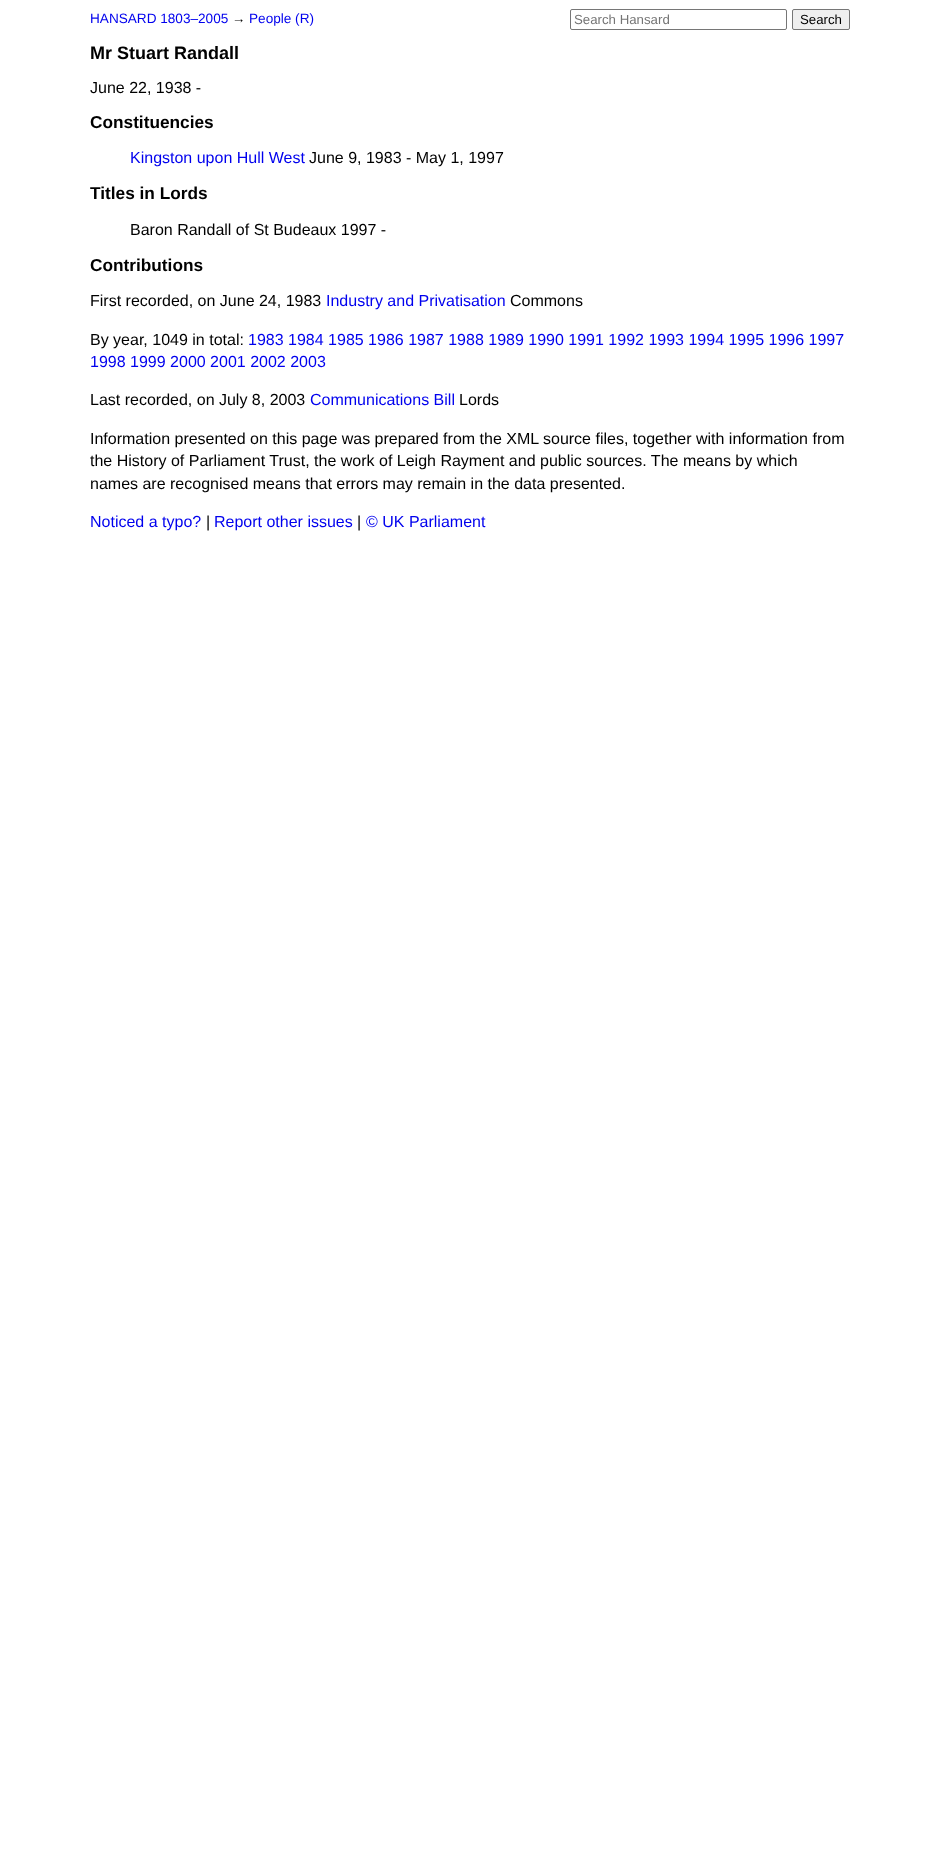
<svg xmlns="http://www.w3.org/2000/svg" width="940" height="1863">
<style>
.a{font:13.6px Liberation Sans;fill:#00e}
.b{font:13.6px Liberation Sans;fill:#000}
.c{font:13.25px Liberation Sans;fill:#757575}
.d{font:13.25px Liberation Sans;fill:#000}
.e{font:bold 18px Liberation Sans;fill:#000}
.f{font:16px Liberation Sans;fill:#000}
.g{font:bold 17.25px Liberation Sans;fill:#000}
.h{font:16px Liberation Sans;fill:#00e}
</style>
<rect width="100%" height="100%" fill="#fff"/>
<rect fill="none" stroke="#767676" x="570.5" y="9.5" width="216" height="20" rx="1.5"/>
<rect fill="#efefef" stroke="#767676" x="792.5" y="9.5" width="57" height="20" rx="1.5"/>
<text class="a" x="90" y="23">HANSARD 1803–2005</text>
<text class="b" x="232" y="23">→</text>
<text class="a" x="249" y="23">People (R)</text>
<text class="c" x="574" y="24">Search Hansard</text>
<text class="d" x="800" y="24">Search</text>
<text class="e" x="90" y="59">Mr Stuart Randall</text>
<text class="f" x="90" y="93">June 22, 1938 -</text>
<text class="g" x="90" y="128">Constituencies</text>
<text class="h" x="130" y="163">Kingston upon Hull West</text>
<text class="f" x="309" y="163">June 9, 1983 - May 1, 1997</text>
<text class="g" x="90" y="199">Titles in Lords</text>
<text class="f" x="130" y="235">Baron Randall of St Budeaux 1997 -</text>
<text class="g" x="90" y="271">Contributions</text>
<text class="f" x="90" y="306">First recorded, on June 24, 1983</text>
<text class="h" x="326" y="306">Industry and Privatisation</text>
<text class="f" x="510" y="306">Commons</text>
<text class="f" x="90" y="345">By year, 1049 in total:</text>
<text class="h" x="248" y="345">1983 1984 1985 1986 1987 1988 1989 1990 1991 1992 1993 1994 1995 1996 1997</text>
<text class="h" x="90" y="367">1998 1999 2000 2001 2002 2003</text>
<text class="f" x="90" y="405">Last recorded, on July 8, 2003</text>
<text class="h" x="310" y="405">Communications Bill</text>
<text class="f" x="459" y="405">Lords</text>
<text class="f" x="90" y="444">Information presented on this page was prepared from the XML source files, together with information from</text>
<text class="f" x="90" y="466">the History of Parliament Trust, the work of Leigh Rayment and public sources. The means by which</text>
<text class="f" x="90" y="489">names are recognised means that errors may remain in the data presented.</text>
<text class="h" x="90" y="527">Noticed a typo?</text>
<text class="f" x="206" y="527">|</text>
<text class="h" x="214" y="527">Report other issues</text>
<text class="f" x="357" y="527">|</text>
<text class="h" x="366" y="527">© UK Parliament</text>
</svg>
